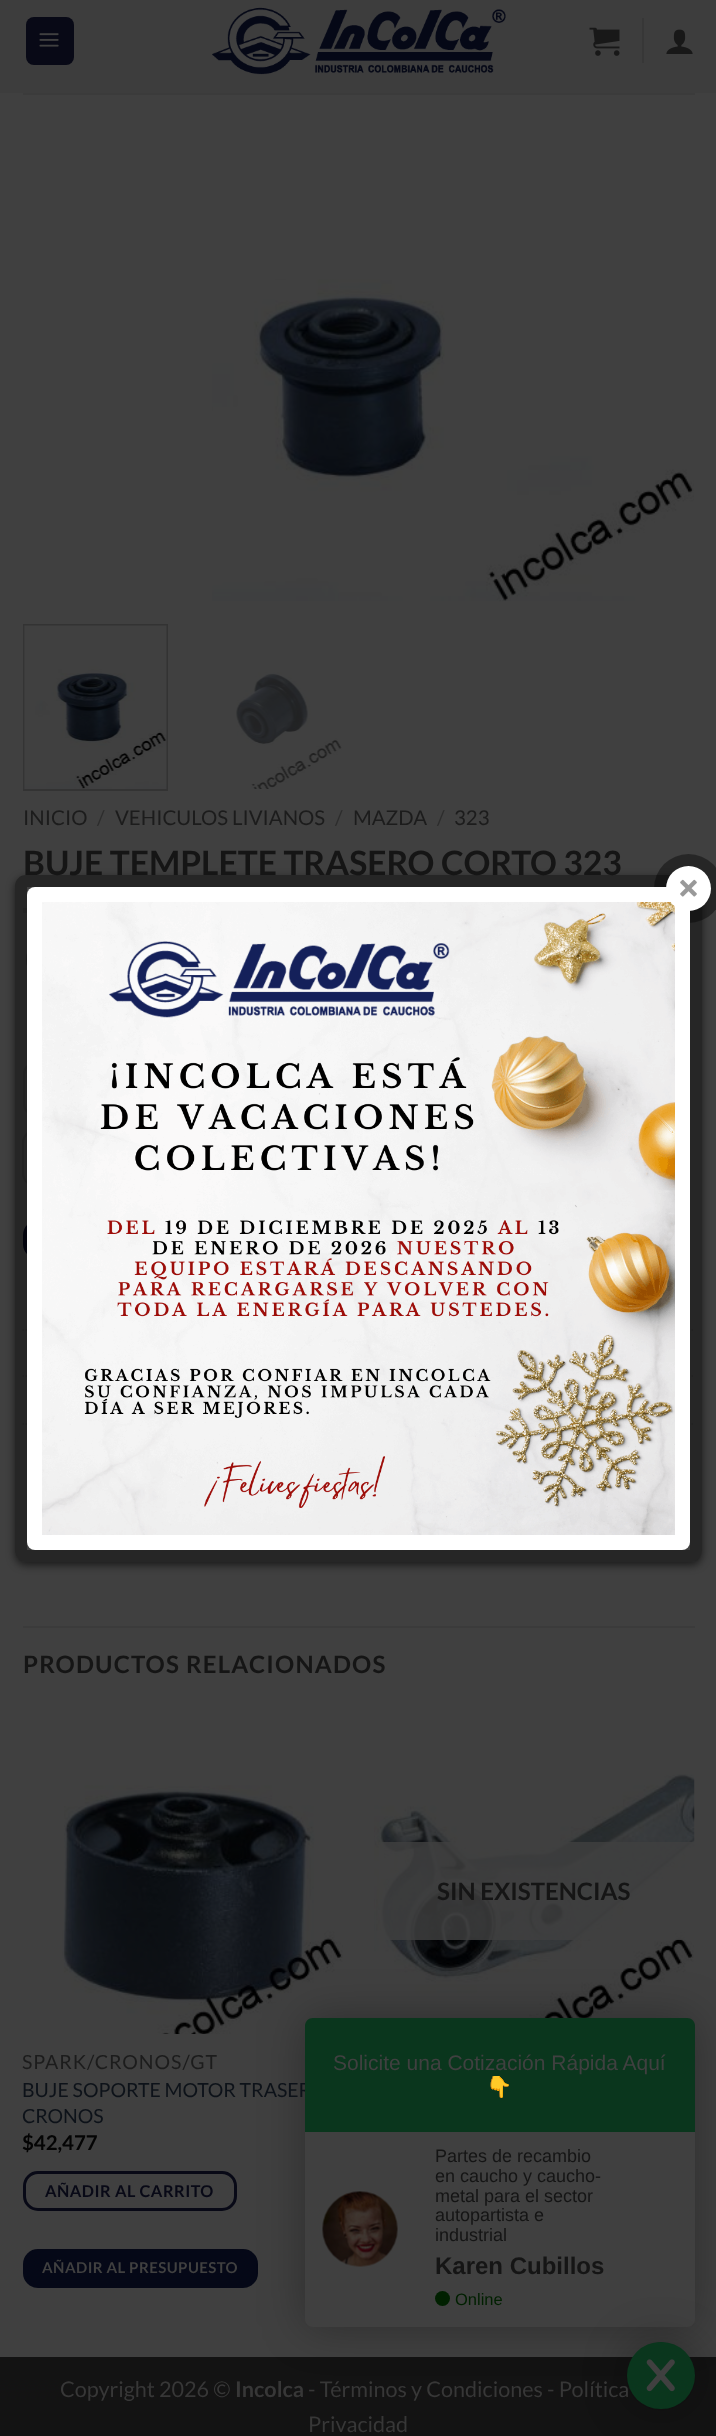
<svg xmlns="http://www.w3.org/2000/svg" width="716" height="2436">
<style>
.a{font:20.4px Lato;fill:#1c1c1c}
.b{font:20.4px Lato;fill:#2d2d2d}
.c{font:bold 33.6px Lato;fill:#151515}
.d{font:bold 24px Lato;letter-spacing:1.2px;fill:#151515}
.e{font:bold 24px Lato;fill:#151515}
.f{font:19.5px Lato;letter-spacing:1px;fill:#1c1c1c}
.g{font:19.5px Lato;fill:#0d1219}
.h{font:bold 20.4px Lato;fill:#040404}
.i{font:bold 16.25px Lato;letter-spacing:0.5px;fill:#080916}
.j{font:bold 15px Lato;letter-spacing:0.45px;fill:#404040}
.k{font:21.6px Lato;fill:#373737}
.l{font:bold 21.6px Lato;fill:#373737}
.m{font:21px Liberation Sans;fill:#404040}
.n{font:21px Noto Color Emoji;fill:#404040}
.o{font:18px Liberation Sans;fill:#151515}
.p{font:bold 24px Liberation Sans;fill:#151515}
.q{font:16.5px Liberation Sans;fill:#002000}
</style>
<defs>
<clipPath id="clip1"><path d="M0 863h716v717h-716zm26 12h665c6 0 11 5 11 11v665c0 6-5 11-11 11h-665c-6 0-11-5-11-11v-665c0-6 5-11 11-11z" clip-rule="evenodd"/></clipPath>
</defs>
<rect width="100%" height="100%" fill="#404040"/>
<path fill="#3d3d3d" d="M0 0h716v93H0z"/>
<rect fill="#080916" x="26" y="17" width="48" height="48" rx="8"/>
<image href="1.png" x="39" y="33" width="20" height="14"/>
<image href="2.png" x="212" y="7" width="294" height="68"/>
<image href="3.png" x="589" y="27" width="31" height="29"/>
<path fill="#373737" d="M642 18h2v45H642z"/>
<image href="4.png" x="666" y="29" width="27" height="25"/>
<path fill="#3b3b3b" d="M23 93h672v2H23z"/>
<image href="5.png" x="212" y="279" width="482" height="323"/>
<path fill="none" stroke="#333" stroke-width="2" d="M24 625h143v165H24z"/>
<image href="6.png" x="23" y="625" width="144" height="164"/>
<image href="7.png" x="236" y="672" width="106" height="117"/>
<path fill="#3a3a3a" d="M23 908h4v5H23z"/>
<rect fill="none" stroke="#303030" stroke-width="3" x="27.5" y="937.5" width="45" height="44" rx="22"/>
<rect fill="none" stroke="#393939" stroke-width="2" x="24" y="1063" width="364" height="52" rx="11"/>
<path fill="#373737" fill-rule="evenodd" d="M38 1128h20v60h-20c-9 0-16-7-16-15v-30c0-8 7-15 16-15zm0 2h20v56h-20c-8 0-14-6-14-13v-30c0-7 6-13 14-13z"/>
<rect fill="#050817" x="23" y="1220" width="235" height="39" rx="15"/>
<path fill="none" stroke="#373737" stroke-width="1.5" stroke-dasharray="1.5 1.5" d="M22.5 1330h672"/>
<path fill="none" stroke="#373737" stroke-width="1.5" stroke-dasharray="1.5 1.5" d="M22.5 1376h672"/>
<path fill="none" stroke="#373737" stroke-width="1.5" stroke-dasharray="1.5 1.5" d="M22.5 1424h672"/>
<path fill="#3b3b3b" d="M23 1626h672v2H23z"/>
<image href="8.png" x="374" y="1774" width="321" height="252"/>
<path fill="#404040cf" d="M379 1842h315v98H379z"/>
<image href="9.png" x="62" y="1785" width="281" height="249"/>
<rect fill="none" stroke="#080916" stroke-width="3" x="24.5" y="2172.5" width="211" height="37" rx="13.5"/>
<rect fill="#050817" x="23" y="2249" width="235" height="39" rx="15"/>
<path fill="#131313" d="M0 2357h716v79H0z"/>
<g clip-path="url(#clip1)">
<rect fill="#00000099" filter="blur(4.5px)" x="15" y="878" width="687" height="687" rx="11"/>
</g>
<rect fill="#0000004d" filter="blur(22.5px)" x="305" y="2018" width="390" height="309" rx="8"/>
<path fill="#404040" d="M305 2132h390v187c0 4.5-3.5 8-8 8h-374c-4.5 0-8-3.5-8-8z"/>
<image href="12.png" x="322" y="2191" width="76" height="76"/>
<circle fill="#002000" cx="442.5" cy="2298.5" r="7.5"/>
<rect fill="#0000004d" filter="blur(22.5px)" x="627" y="2342" width="68" height="67" rx="33.5"/>
<text class="a" x="23" y="825">INICIO</text>
<text class="b" x="97" y="825">/</text>
<text class="a" x="115" y="825">VEHICULOS LIVIANOS</text>
<text class="b" x="335" y="825">/</text>
<text class="a" x="353" y="825">MAZDA</text>
<text class="b" x="437" y="825">/</text>
<text class="a" x="454" y="825">323</text>
<text class="c" x="23" y="875">BUJE TEMPLETE TRASERO CORTO 323</text>
<text class="d" x="23" y="1673">PRODUCTOS RELACIONADOS</text>
<text class="e" x="437" y="1900">SIN EXISTENCIAS</text>
<text class="f" x="22" y="2069">SPARK/CRONOS/GT</text>
<text class="g" x="22" y="2097">BUJE SOPORTE MOTOR TRASER</text>
<text class="g" x="22" y="2123">CRONOS</text>
<text class="h" x="22" y="2150">$42,477</text>
<text class="i" x="45" y="2197">AÑADIR AL CARRITO</text>
<text class="j" x="42" y="2273">AÑADIR AL PRESUPUESTO</text>
<text class="k" x="60" y="2397">Copyright 2026 ©</text>
<text class="l" x="235" y="2397">Incolca</text>
<text class="k" x="308" y="2397">- Términos y Condiciones - Política</text>
<text class="k" x="308" y="2432">Privacidad</text>
<rect fill="none" stroke="#00000066" stroke-width="12" x="21" y="881" width="675" height="675" rx="5"/>
<circle fill="#00000066" cx="688.5" cy="888.5" r="34.5"/>
<rect fill="#fff" x="27" y="887" width="663" height="663" rx="8"/>
<image href="11.png" x="42" y="902" width="633" height="633"/>
<circle fill="#fff" cx="688.5" cy="888.5" r="22.5"/>
<image href="10.png" x="680" y="879" width="17" height="18"/>
<path fill="#0a361d" d="M313 2018h374c4.5 0 8 3.5 8 8v106h-390v-106c0-4.5 3.5-8 8-8z"/>
<text class="m" x="333" y="2070">Solicite una Cotización Rápida Aquí</text>
<text class="n" x="486" y="2094">👇</text>
<text class="o" x="435" y="2162">Partes de recambio</text>
<text class="o" x="435" y="2182">en caucho y caucho-</text>
<text class="o" x="435" y="2202">metal para el sector</text>
<text class="o" x="435" y="2221">autopartista e</text>
<text class="o" x="435" y="2241">industrial</text>
<text class="p" x="435" y="2274">Karen Cubillos</text>
<text class="q" x="455" y="2305">Online</text>
<rect fill="#0a361d" x="627" y="2342" width="68" height="67" rx="33.5"/>
<image href="13.png" x="646" y="2342" width="29" height="50"/>
</svg>
